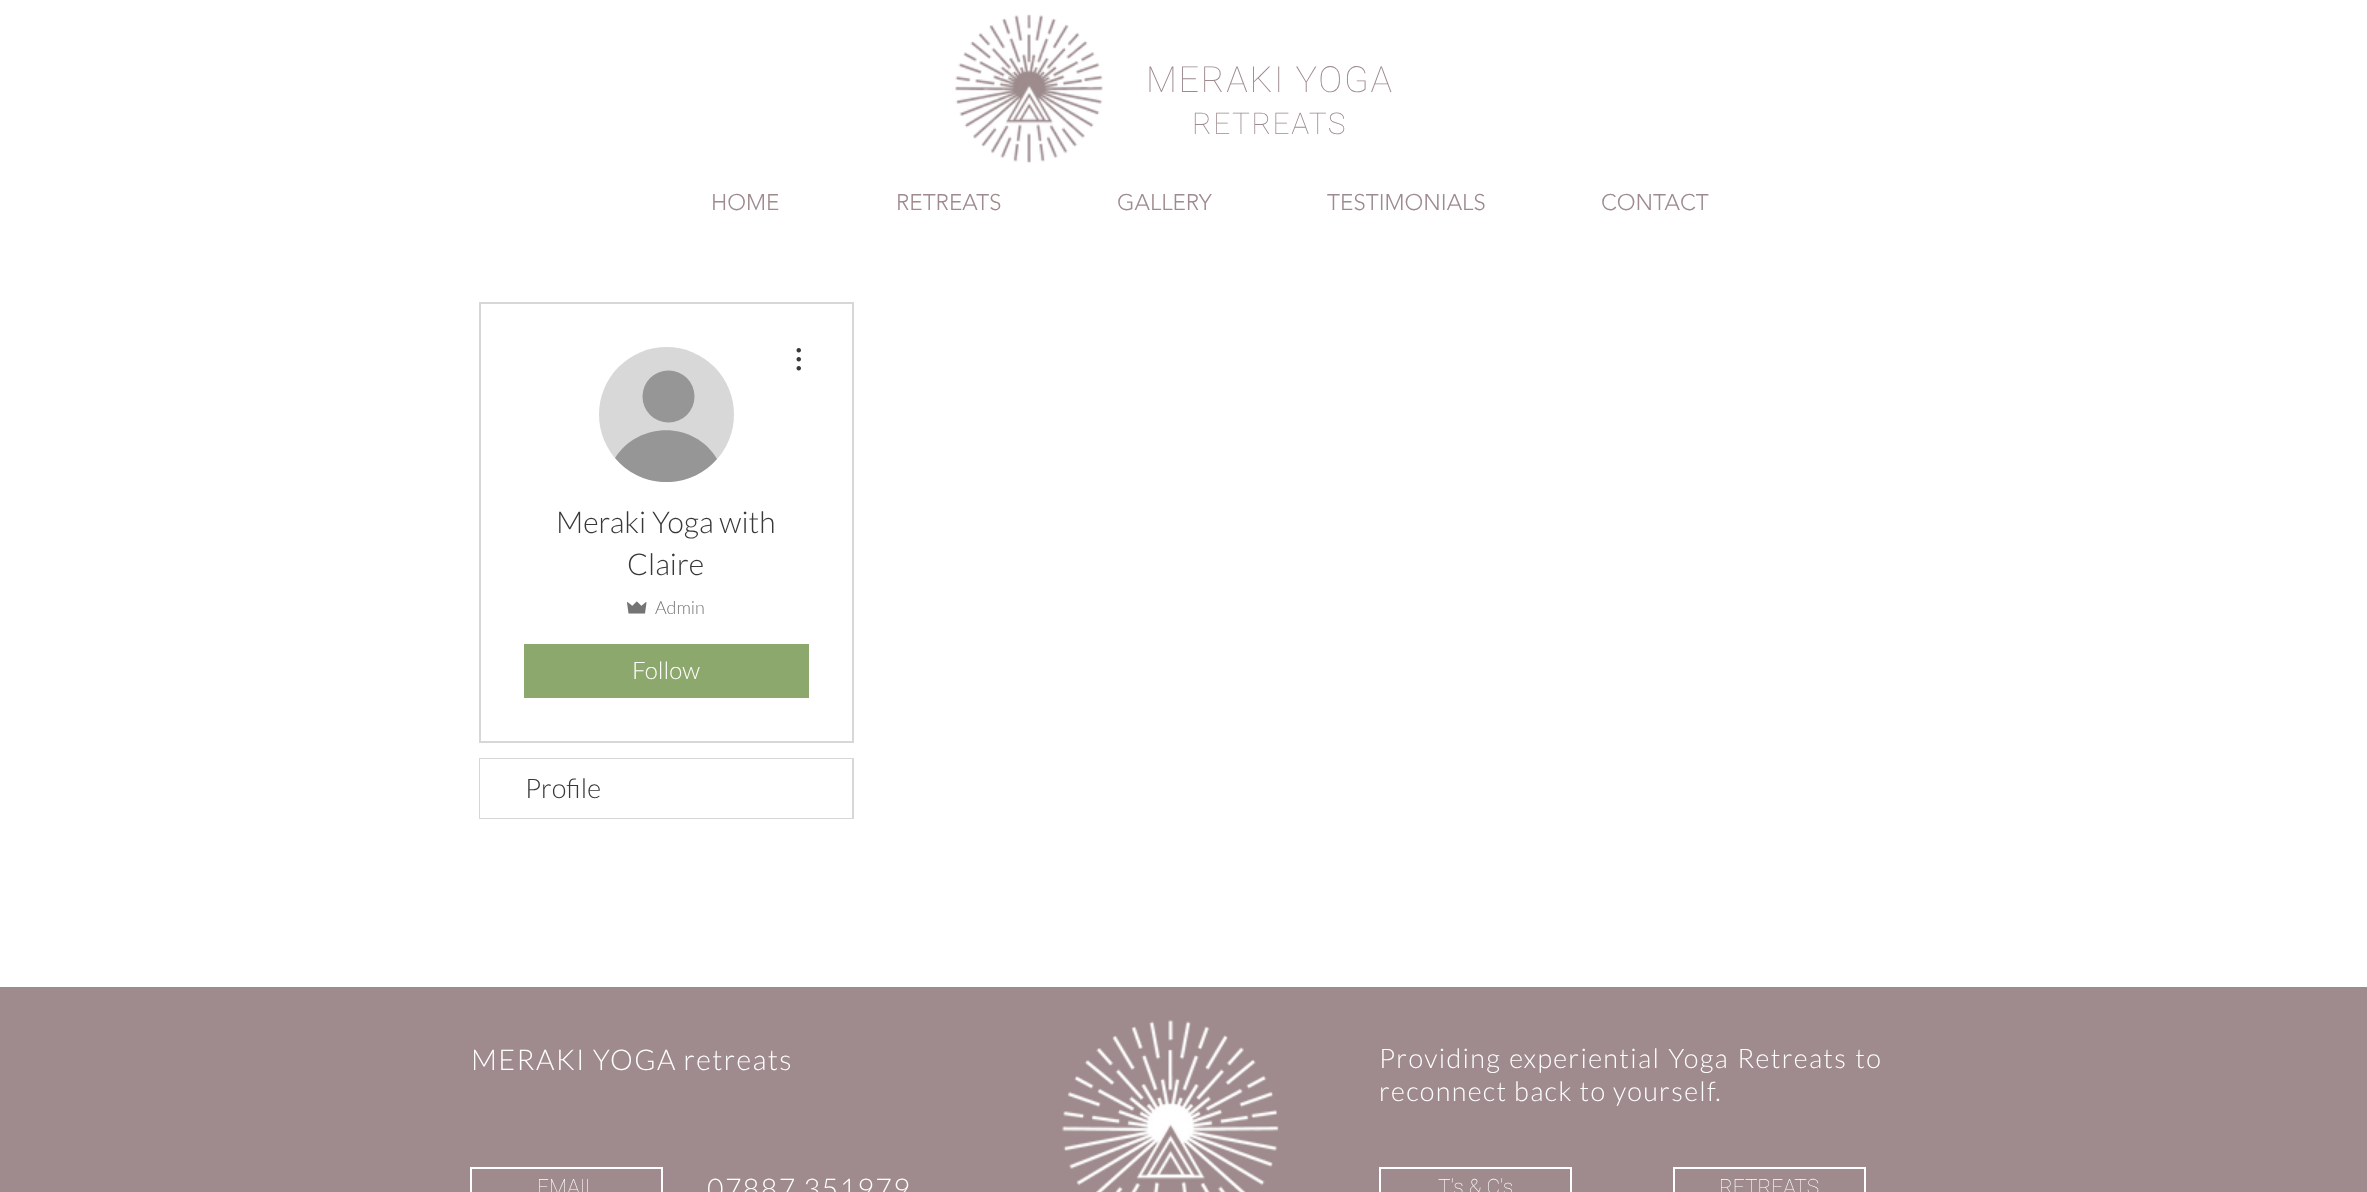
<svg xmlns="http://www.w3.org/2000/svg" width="2367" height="1192">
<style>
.a{font:100 36px Roboto;letter-spacing:1.75px;fill:#9f8b8d}
.b{font:100 30px Roboto;letter-spacing:1.5px;fill:#9f8b8d}
.c{font:300 22.5px 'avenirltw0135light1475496';fill:#9f8b8d}
.d{font:300 30px Lato;fill:#383838}
.e{font:300 18px Lato;fill:#747474}
.f{font:300 24px Lato;fill:#fff}
.g{font:300 27px Lato;fill:#383838}
.h{font:300 28.5px Lato;letter-spacing:1.4px;fill:#fff}
.i{font:300 27px Lato;letter-spacing:1.35px;fill:#fff}
.j{font:100 21px Roboto;fill:#fff}
</style>
<defs>
<clipPath id="clip1"><path d="M599 347h135v135H599z"/></clipPath>
</defs>
<rect width="100%" height="100%" fill="#fff"/>
<image href="1.png" x="955" y="14" width="148" height="149"/>
<path fill="none" stroke="#d7d7d7" stroke-width="2" d="M480 303h373v439H480z"/>
<circle fill="#d8d8d8" cx="666.5" cy="414.5" r="67.5"/>
<circle fill="#969696" cx="668.5" cy="396.5" r="26"/>
<g clip-path="url(#clip1)">
<path fill="#969696" d="M717 459c-27 31-75 31-102-1c24-37 79-37 102 1z"/>
</g>
<image href="2.png" x="796" y="348" width="5" height="23"/>
<image href="3.png" x="627" y="601" width="20" height="13"/>
<path fill="#8da86d" d="M524 644h285v54H524z"/>
<path fill="none" stroke="#d7d7d7" stroke-width="2" d="M480 759h373v59H480z"/>
<path fill="#fff" d="M480 759h372v59H480z"/>
<path fill="#9f8b8d" d="M0 987h2367v205H0z"/>
<image href="4.png" x="1061" y="1019" width="218" height="173"/>
<path fill="none" stroke="#fff" stroke-width="2" d="M471 1168h191v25H471z"/>
<path fill="none" stroke="#fff" stroke-width="2" d="M1380 1168h191v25H1380z"/>
<path fill="none" stroke="#fff" stroke-width="2" d="M1674 1168h191v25H1674z"/>
<text class="a" x="1146" y="92">MERAKI YOGA</text>
<text class="b" x="1192" y="134">RETREATS</text>
<text class="c" x="711" y="210">HOME</text>
<text class="c" x="896" y="210">RETREATS</text>
<text class="c" x="1117" y="210">GALLERY</text>
<text class="c" x="1327" y="210">TESTIMONIALS</text>
<text class="c" x="1601" y="210">CONTACT</text>
<text class="d" x="556" y="533">Meraki Yoga with</text>
<text class="d" x="627" y="575">Claire</text>
<text class="e" x="655" y="614">Admin</text>
<text class="f" x="632" y="679">Follow</text>
<text class="g" x="525" y="798">Profile</text>
<text class="h" x="471" y="1070">MERAKI YOGA retreats</text>
<text class="i" x="1379" y="1068" word-spacing="1.5">Providing experiential Yoga Retreats to</text>
<text class="i" x="1379" y="1101">reconnect back to yourself.</text>
<text class="j" x="537" y="1194">EMAIL</text>
<text class="h" x="707" y="1199">07887 351979</text>
<text class="j" x="1438" y="1194">T's &amp; C's</text>
<text class="j" x="1719" y="1194">RETREATS</text>
</svg>
